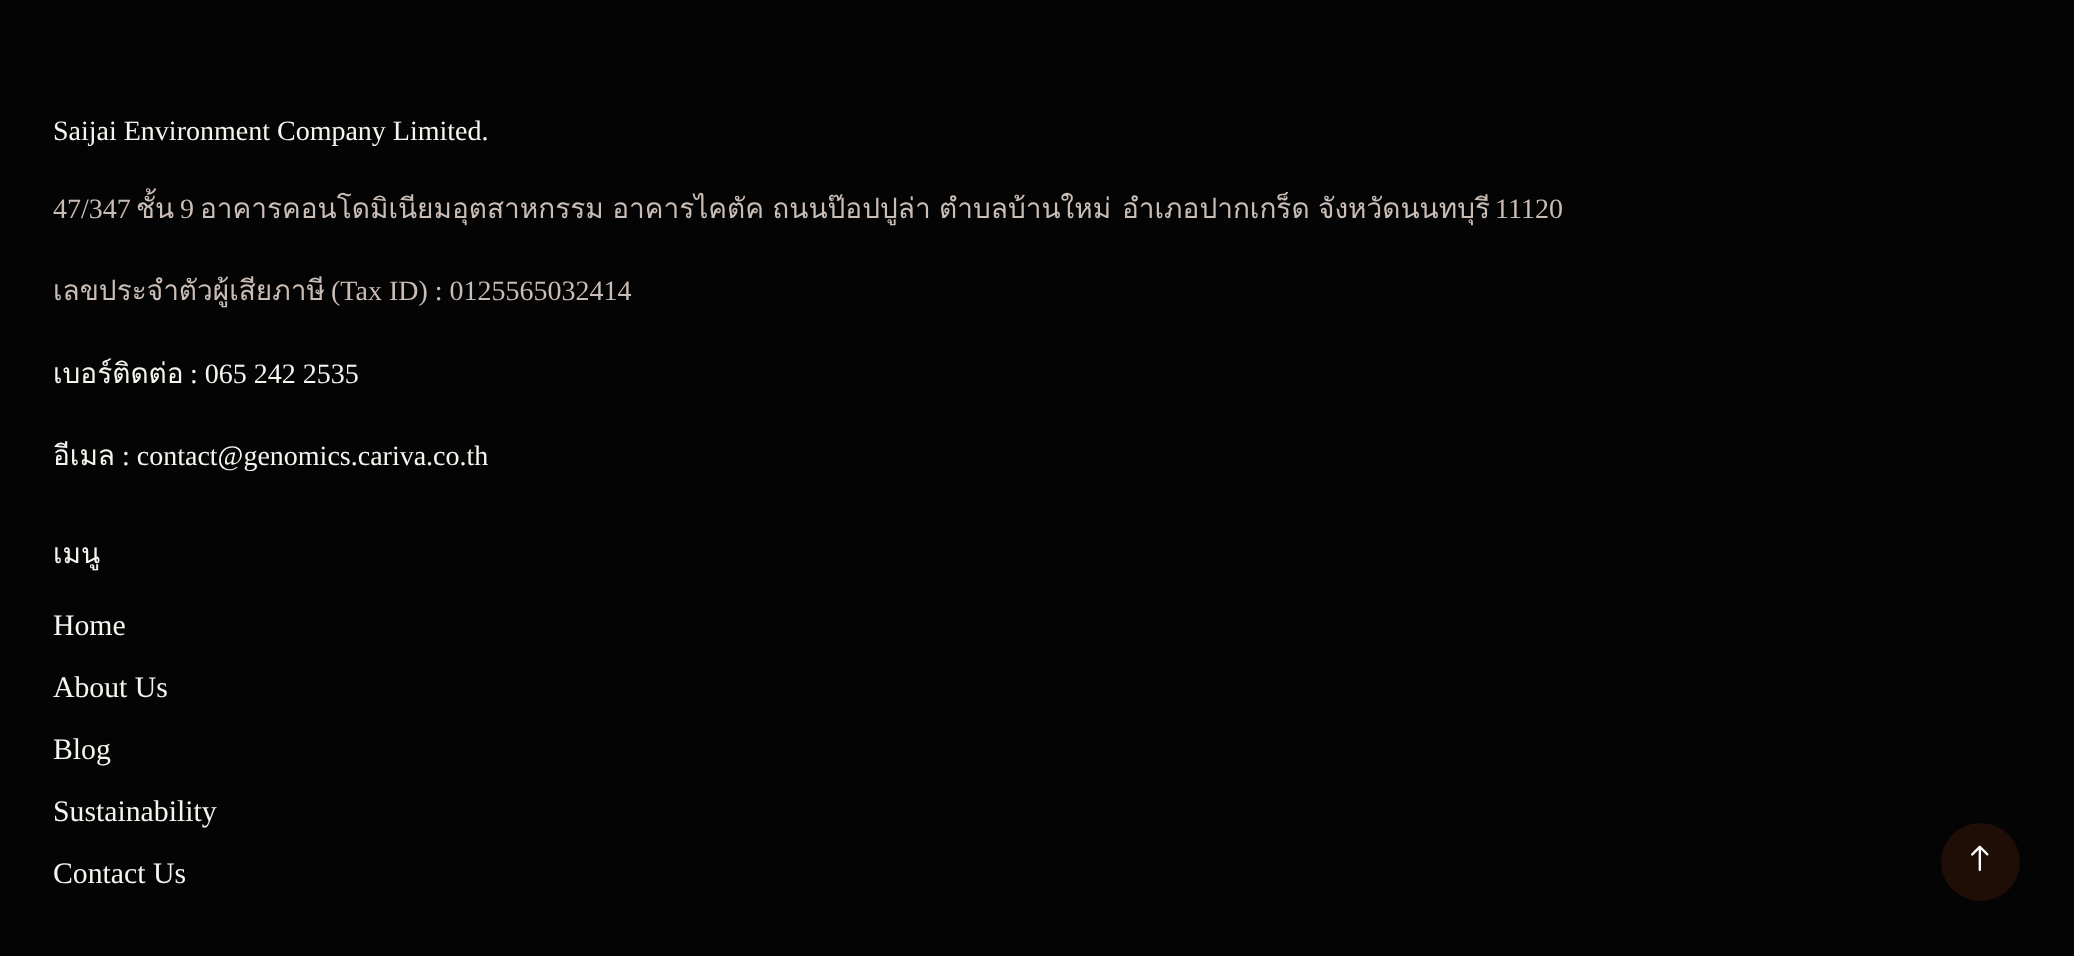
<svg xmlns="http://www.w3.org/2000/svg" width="2074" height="956">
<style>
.a{font:28px Liberation Serif;fill:#f6f4ee}
.b{font:28px Liberation Serif;fill:#c9bdb6}
.c{font:28px Loma;fill:#c9bdb6}
.d{font:28px Loma;fill:#f6f4ee}
.e{font:29.75px Liberation Serif;fill:#f6f4ee}
</style>
<rect width="100%" height="100%" fill="#040404"/>
<rect fill="#1f0e05" x="1941" y="823" width="79" height="78" rx="39"/>
<image href="1.png" x="1971" y="845" width="18" height="27"/>
<text class="a" x="53" y="140">Saijai Environment Company Limited.</text>
<text class="b" x="53" y="218">47/347</text>
<text class="c" x="136" y="218">ชั้น</text>
<text class="b" x="180" y="218">9</text>
<text class="c" x="200" y="218" word-spacing="-1">อาคารคอนโดมิเนียมอุตสาหกรรม อาคารไคตัค ถนนป๊อปปูล่า ตำบลบ้านใหม่</text>
<text class="c" x="1122" y="218" word-spacing="-1">อำเภอปากเกร็ด จังหวัดนนทบุรี</text>
<text class="b" x="1495" y="218">11120</text>
<text class="c" x="53" y="300">เลขประจำตัวผู้เสียภาษี</text>
<text class="b" x="331" y="300">(Tax ID) : 0125565032414</text>
<text class="d" x="53" y="383">เบอร์ติดต่อ</text>
<text class="a" x="190" y="383">: 065 242 2535</text>
<text class="d" x="53" y="465">อีเมล</text>
<text class="a" x="122" y="465">: contact@genomics.cariva.co.th</text>
<text class="d" x="53" y="563">เมนู</text>
<text class="e" x="53" y="635">Home</text>
<text class="e" x="53" y="697">About Us</text>
<text class="e" x="53" y="759">Blog</text>
<text class="e" x="53" y="821">Sustainability</text>
<text class="e" x="53" y="883">Contact Us</text>
</svg>
